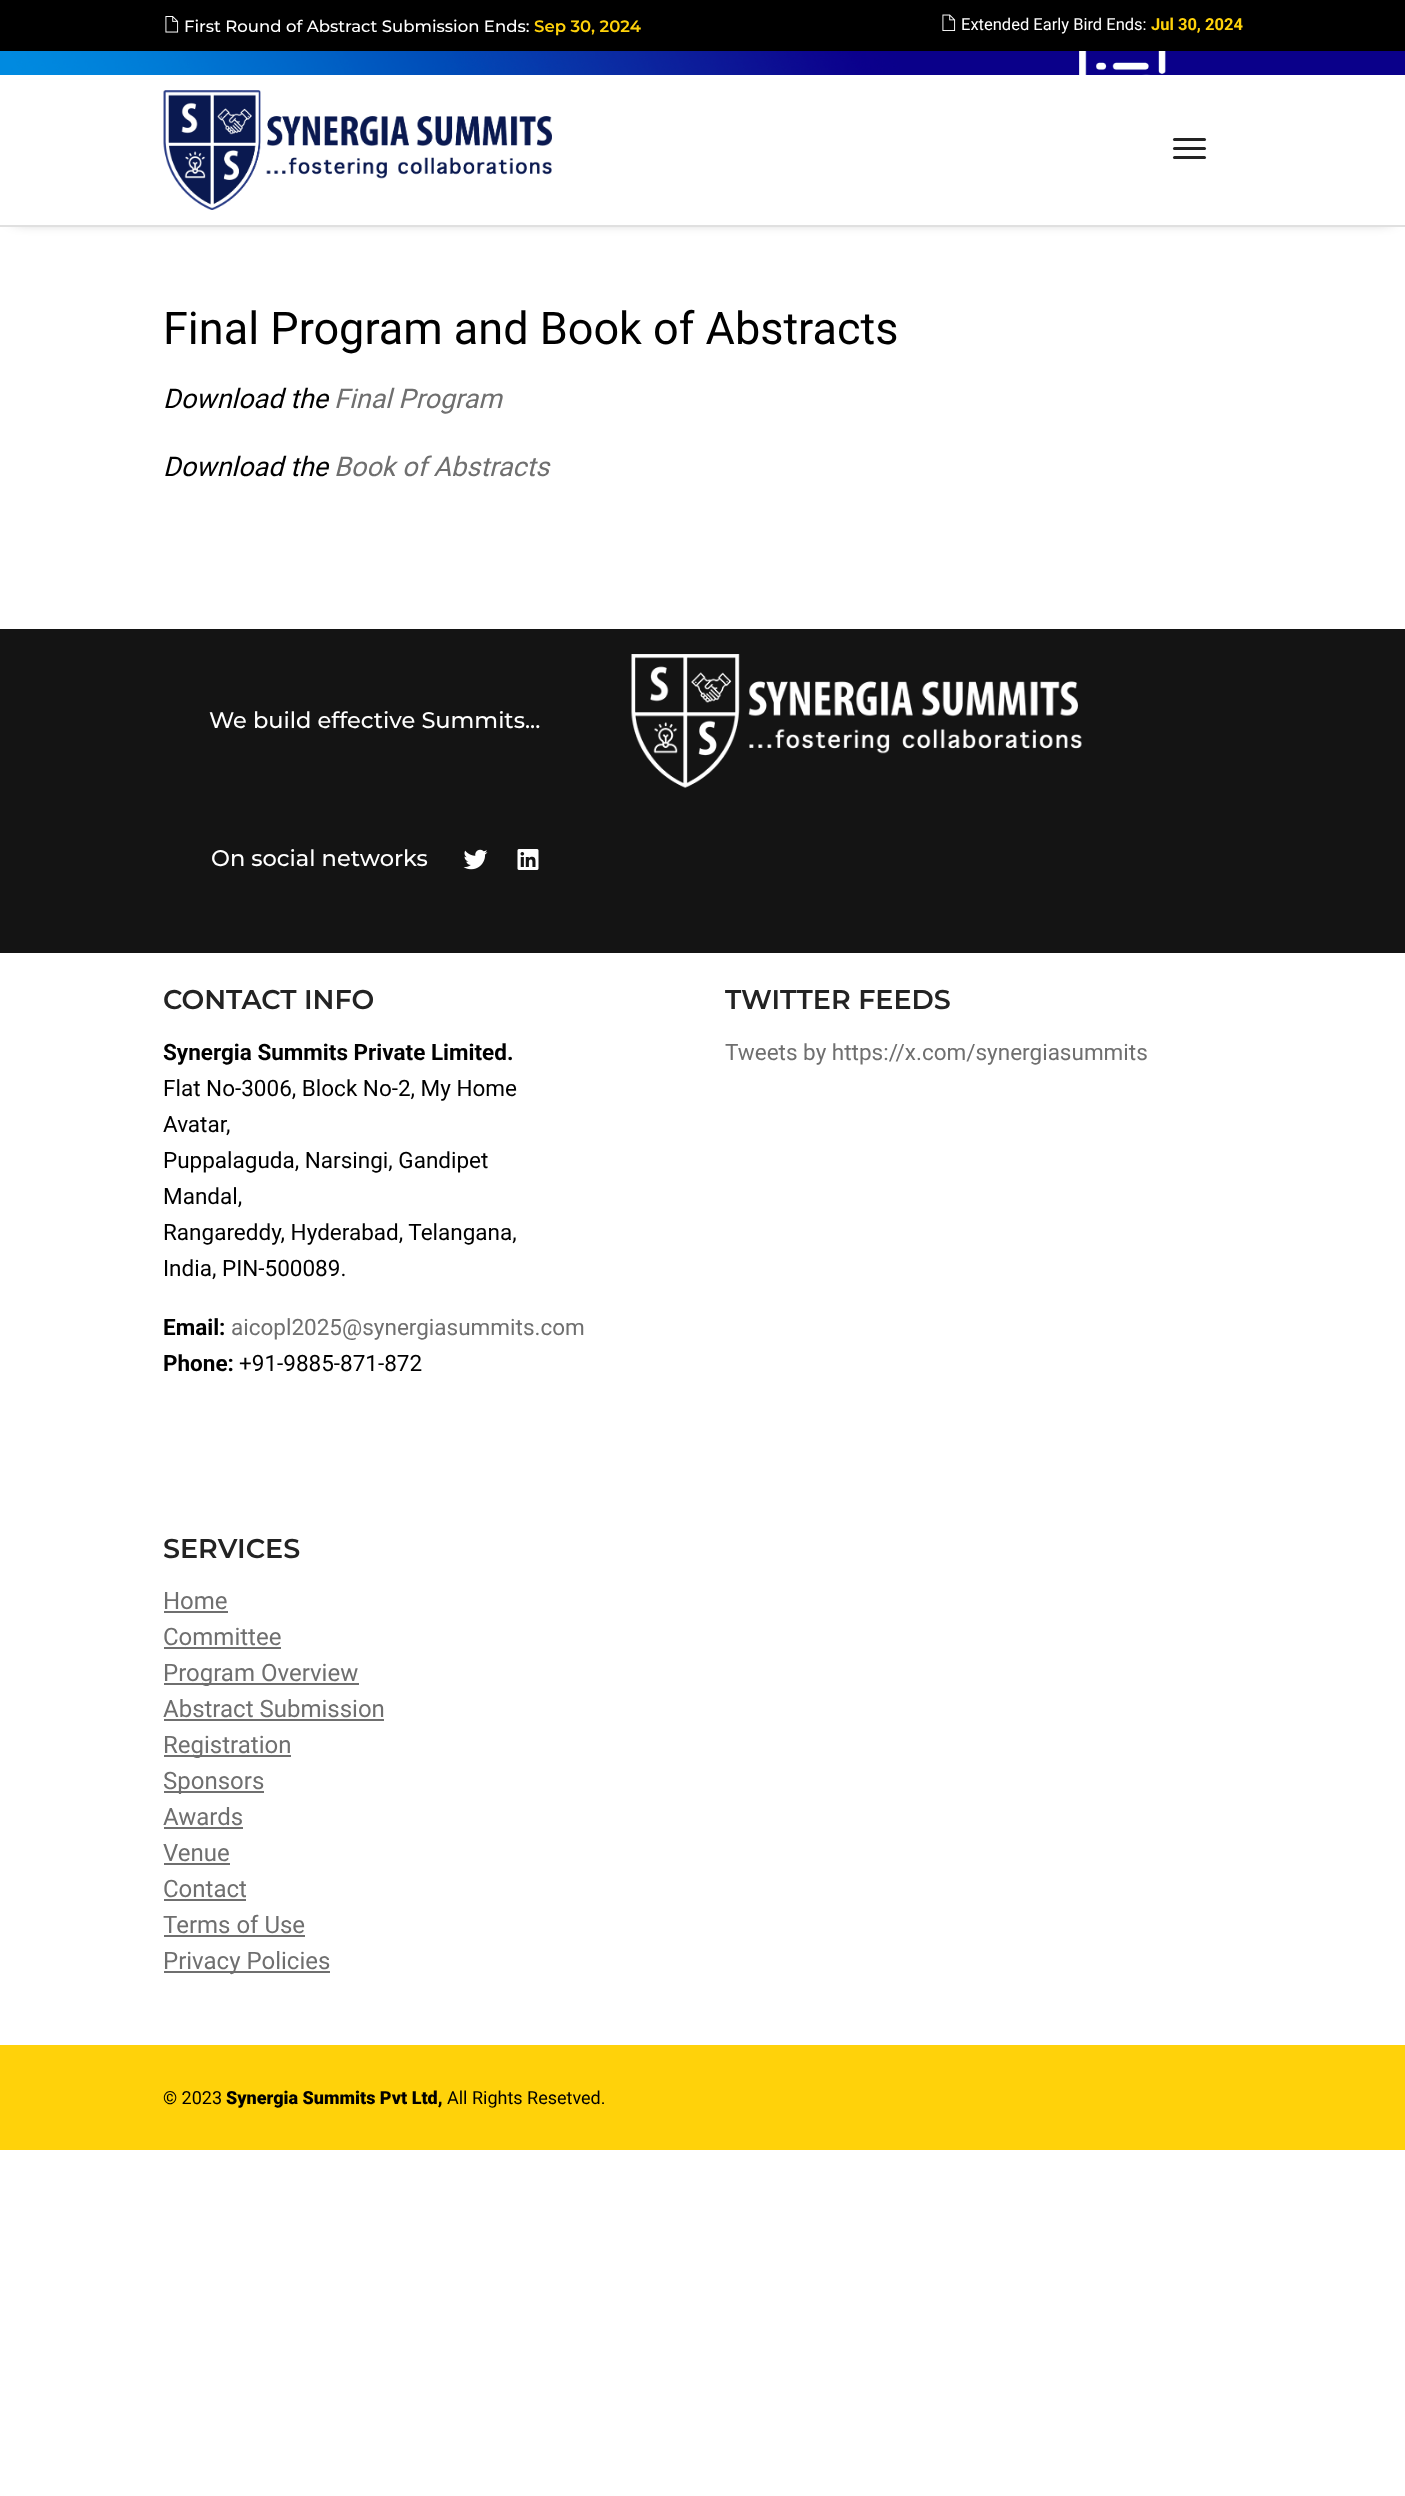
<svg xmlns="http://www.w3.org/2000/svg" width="1405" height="2496">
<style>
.a{font:500 16.5px Montserrat;fill:#fff}
.b{font:600 16.5px Montserrat;fill:#ffd20a}
.c{font:16.5px Roboto;fill:#fff}
.d{font:bold 16.5px Roboto;fill:#ffd20a}
.e{font:45px Roboto;fill:#000}
.f{font:italic 27px Roboto;fill:#000}
.g{font:italic 27px Roboto;fill:#6f6f6f}
.h{font:500 22.5px Montserrat;fill:#fff}
.i{font:600 27px Montserrat;fill:#232323}
.j{font:bold 22.5px Roboto;fill:#000}
.k{font:22.5px Roboto;fill:#000}
.l{font:22.5px Roboto;fill:#6f6f6f}
.m{font:24px Roboto;fill:#6f6f6f}
.n{font:18px Roboto;fill:#000}
.o{font:900 18px Roboto;fill:#000}
</style>
<rect width="100%" height="100%" fill="#fff"/>
<path fill="#000" d="M0 0h1405v51H0z"/>
<image href="1.png" x="165" y="16" width="14" height="17"/>
<image href="2.png" x="942" y="14" width="14" height="17"/>
<image href="4.png" x="0" y="51" width="1405" height="24"/>
<path fill="#00000099" filter="blur(7.5px)" d="M15 96h1376v122H15z"/>
<path fill="#fff" d="M0 80h1405v145H0z"/>
<path fill="#e0e0e0" d="M0 225h1405v2H0z"/>
<image href="3.png" x="163" y="90" width="389" height="120"/>
<rect fill="#232323" x="1173" y="138" width="33" height="3" rx="1.5"/>
<rect fill="#232323" x="1173" y="147" width="33" height="3" rx="1.5"/>
<rect fill="#232323" x="1173" y="156" width="33" height="3" rx="1.5"/>
<path fill="#141414" d="M0 629h1405v324H0z"/>
<image href="5.png" x="631" y="654" width="451" height="134"/>
<image href="6.png" x="463" y="849" width="25" height="21"/>
<image href="7.png" x="517" y="849" width="22" height="21"/>
<path fill="#6f6f6f" d="M164 1611h64v2H164z"/>
<path fill="#6f6f6f" d="M164 1647h117v2H164z"/>
<path fill="#6f6f6f" d="M164 1683h195v2H164z"/>
<path fill="#6f6f6f" d="M164 1719h220v2H164z"/>
<path fill="#6f6f6f" d="M164 1755h127v2H164z"/>
<path fill="#6f6f6f" d="M164 1791h100v2H164z"/>
<path fill="#6f6f6f" d="M164 1827h79v2H164z"/>
<path fill="#6f6f6f" d="M164 1863h66v2H164z"/>
<path fill="#6f6f6f" d="M164 1899h82v2H164z"/>
<path fill="#6f6f6f" d="M164 1935h141v2H164z"/>
<path fill="#6f6f6f" d="M164 1971h166v2H164z"/>
<path fill="#ffd20a" d="M0 2045h1405v105H0z"/>
<text class="a" x="184" y="32">First Round of Abstract Submission Ends:</text>
<text class="b" x="534" y="32">Sep 30, 2024</text>
<text class="c" x="961" y="30">Extended Early Bird Ends:</text>
<text class="d" x="1151" y="30">Jul 30, 2024</text>
<text class="e" x="163" y="344">Final Program and Book of Abstracts</text>
<text class="f" x="163" y="408">Download the</text>
<text class="g" x="334" y="408">Final Program</text>
<text class="f" x="163" y="476">Download the</text>
<text class="g" x="334" y="476">Book of Abstracts</text>
<text class="h" x="209" y="728">We build effective Summits...</text>
<text class="h" x="211" y="866">On social networks</text>
<text class="i" x="163" y="1009">CONTACT INFO</text>
<text class="j" x="163" y="1060">Synergia Summits Private Limited.</text>
<text class="k" x="163" y="1096">Flat No-3006, Block No-2, My Home</text>
<text class="k" x="163" y="1132">Avatar,</text>
<text class="k" x="163" y="1168">Puppalaguda, Narsingi, Gandipet</text>
<text class="k" x="163" y="1204">Mandal,</text>
<text class="k" x="163" y="1240">Rangareddy, Hyderabad, Telangana,</text>
<text class="k" x="163" y="1276">India, PIN-500089.</text>
<text class="j" x="163" y="1335">Email:</text>
<text class="l" x="231" y="1335">aicopl2025@synergiasummits.com</text>
<text class="j" x="163" y="1371">Phone:</text>
<text class="k" x="239" y="1371">+91-9885-871-872</text>
<text class="i" x="725" y="1009">TWITTER FEEDS</text>
<text class="l" x="725" y="1060">Tweets by https://x.com/synergiasummits</text>
<text class="i" x="163" y="1558">SERVICES</text>
<text class="m" x="163" y="1609">Home</text>
<text class="m" x="163" y="1645">Committee</text>
<text class="m" x="163" y="1681">Program Overview</text>
<text class="m" x="163" y="1717">Abstract Submission</text>
<text class="m" x="163" y="1753">Registration</text>
<text class="m" x="163" y="1789">Sponsors</text>
<text class="m" x="163" y="1825">Awards</text>
<text class="m" x="163" y="1861">Venue</text>
<text class="m" x="163" y="1897">Contact</text>
<text class="m" x="163" y="1933">Terms of Use</text>
<text class="m" x="163" y="1969">Privacy Policies</text>
<text class="n" x="163" y="2104">© 2023</text>
<text class="o" x="226" y="2104">Synergia Summits Pvt Ltd,</text>
<text class="n" x="447" y="2104">All Rights Resetved.</text>
</svg>
